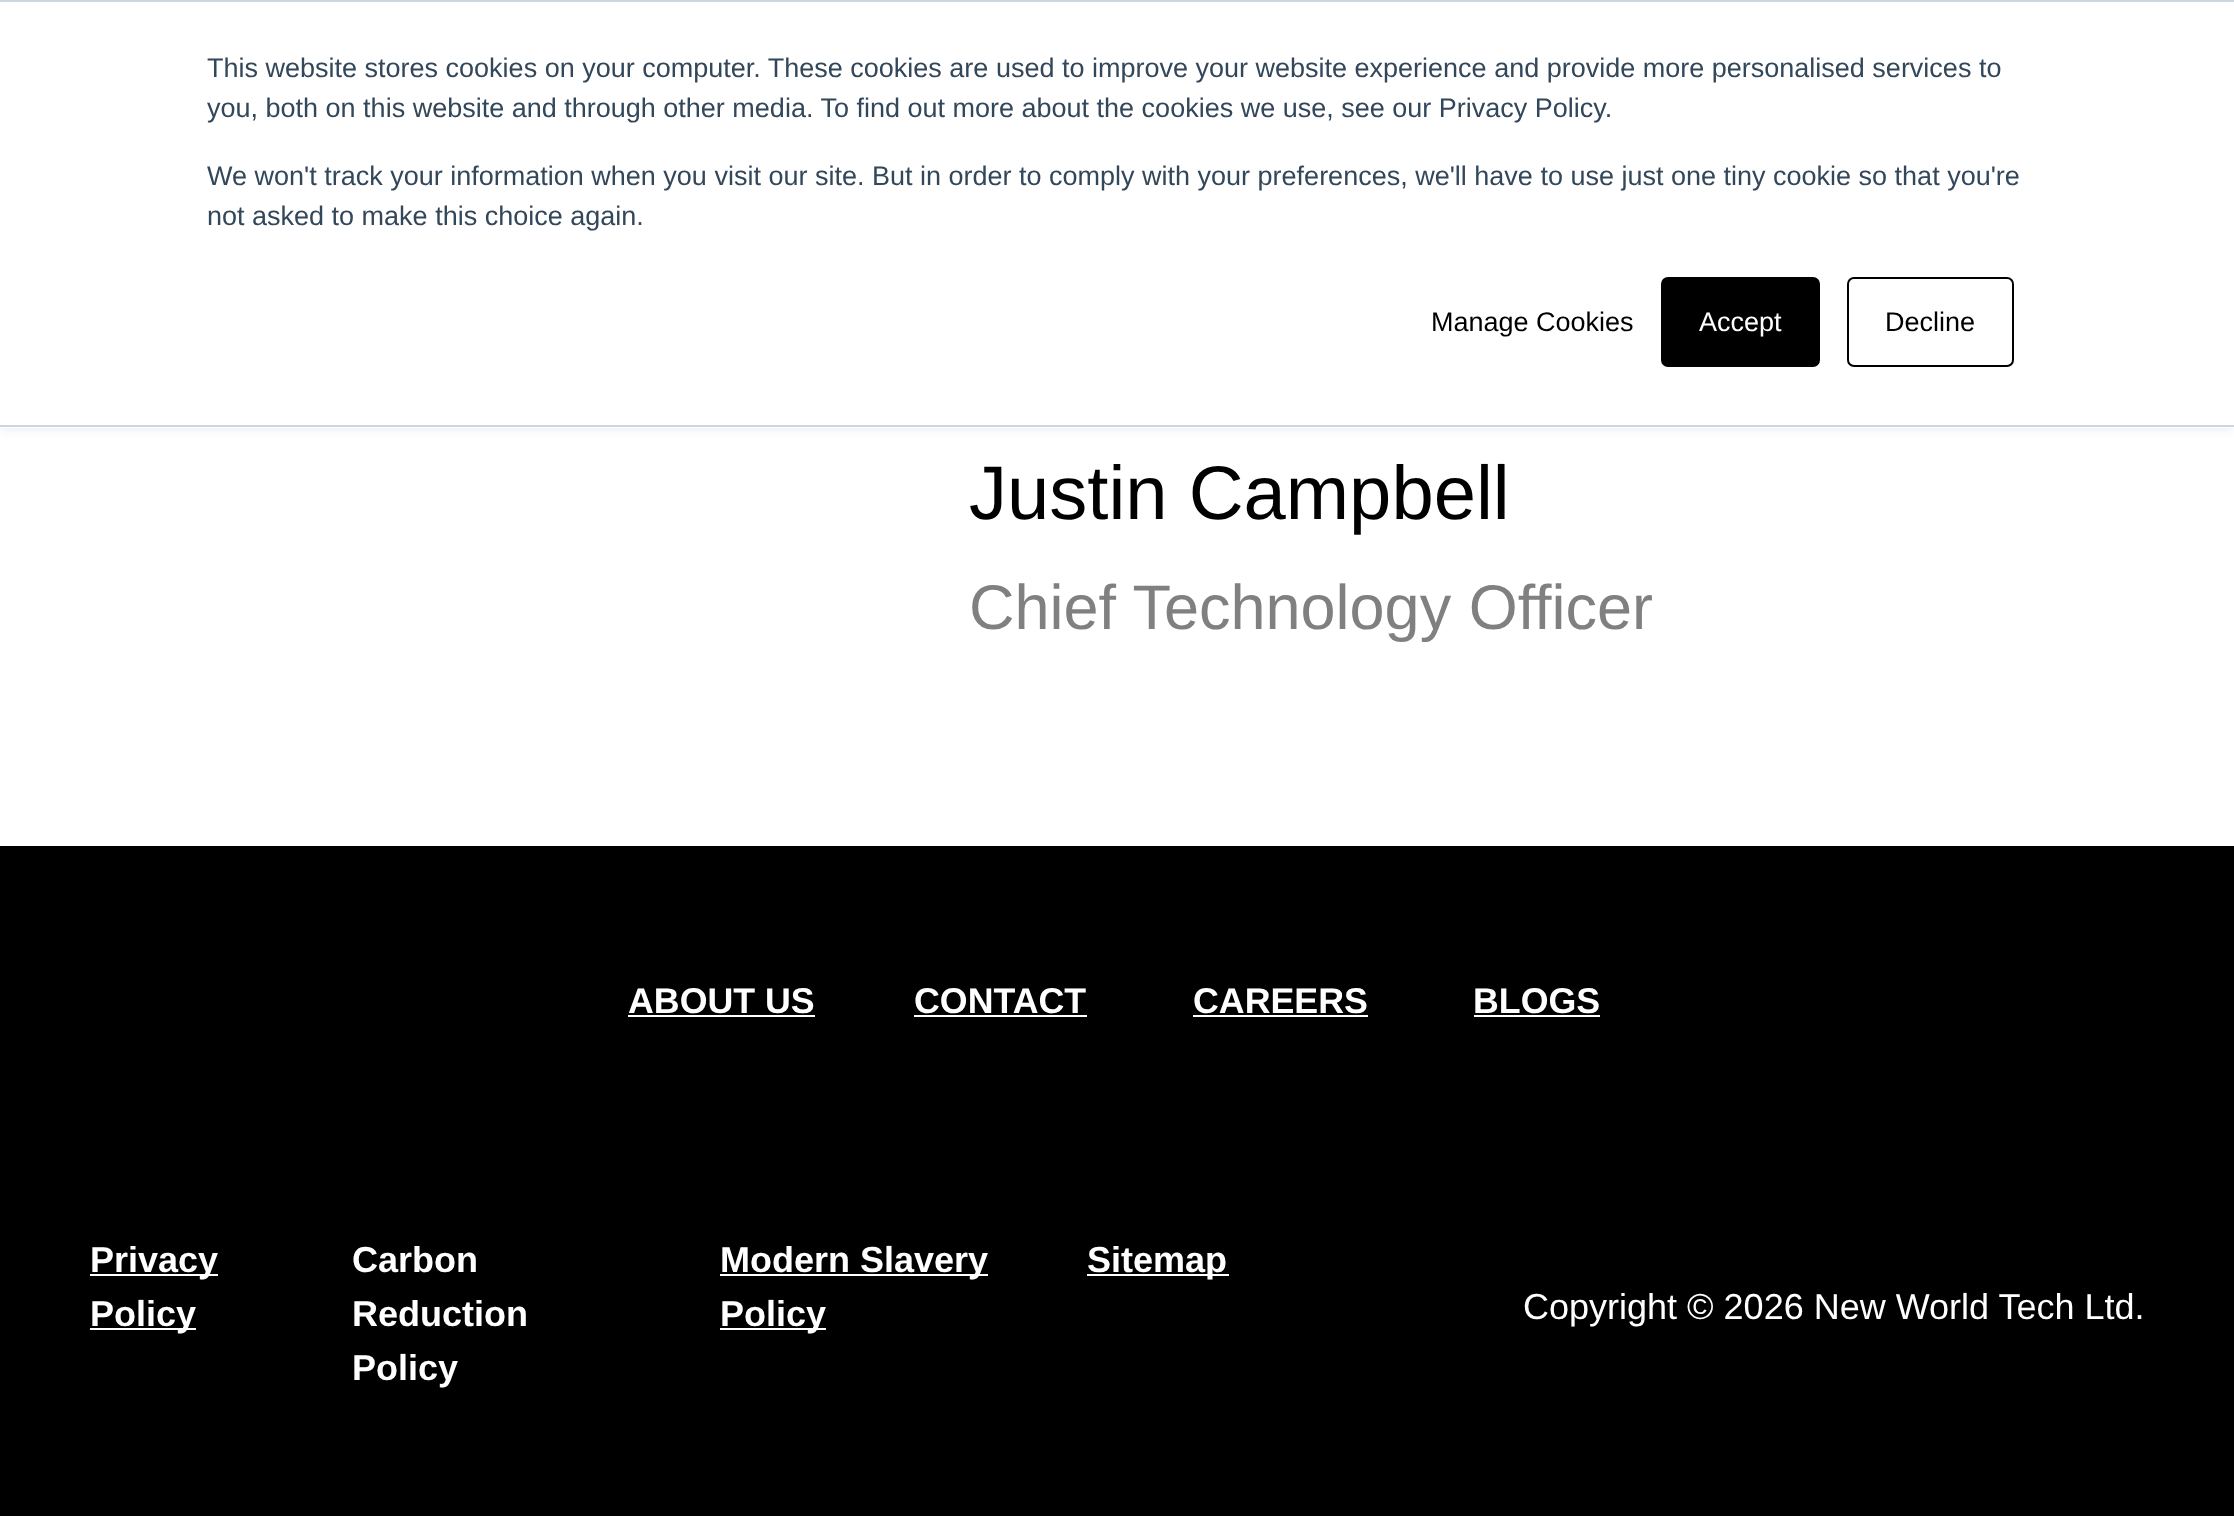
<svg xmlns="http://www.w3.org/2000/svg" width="2234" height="1516">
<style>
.a{font:27px Liberation Sans;fill:#33475b}
.b{font:27px Liberation Sans;fill:#000}
.c{font:27px Liberation Sans;fill:#fff}
.d{font:76px Liberation Sans;fill:#000}
.e{font:63px Liberation Sans;fill:#808080}
.f{font:bold 35.75px Liberation Sans;fill:#fff}
.g{font:bold 36px Liberation Sans;fill:#fff}
.h{font:36px Liberation Sans;fill:#fff}
</style>
<rect width="100%" height="100%" fill="#fff"/>
<path fill="#eaf0f6" filter="blur(5.5px)" d="M0 2h2234v428H0z"/>
<path fill="#fff" d="M0 2h2234v426H0z"/>
<path fill="#cbd6e2" d="M0 0h2234v2H0z"/>
<path fill="#cbd6e2" d="M0 425h2234v2H0z"/>
<rect fill="#000" stroke="#000" stroke-width="2" x="1662" y="278" width="157" height="88" rx="6"/>
<rect fill="none" stroke="#000" stroke-width="2" x="1848" y="278" width="165" height="88" rx="6"/>
<path fill="#000" d="M0 846h2234v670H0z"/>
<path fill="#fff" d="M628 1015h187v2H628z"/>
<path fill="#fff" d="M914 1015h173v2H914z"/>
<path fill="#fff" d="M1193 1015h175v2H1193z"/>
<path fill="#fff" d="M1474 1015h126v2H1474z"/>
<path fill="#fff" d="M90 1274h128v2H90z"/>
<path fill="#fff" d="M90 1328h106v2H90z"/>
<path fill="#fff" d="M720 1274h268v2H720z"/>
<path fill="#fff" d="M720 1328h106v2H720z"/>
<path fill="#fff" d="M1087 1274h142v2H1087z"/>
<text class="a" x="207" y="77">This website stores cookies on your computer. These cookies are used to improve your website experience and provide more personalised services to</text>
<text class="a" x="207" y="117">you, both on this website and through other media. To find out more about the cookies we use, see our Privacy Policy.</text>
<text class="a" x="207" y="185">We won't track your information when you visit our site. But in order to comply with your preferences, we'll have to use just one tiny cookie so that you're</text>
<text class="a" x="207" y="225">not asked to make this choice again.</text>
<text class="b" x="1431" y="331">Manage Cookies</text>
<text class="c" x="1699" y="331">Accept</text>
<text class="b" x="1885" y="331">Decline</text>
<text class="d" x="969" y="519">Justin Campbell</text>
<text class="e" x="969" y="629">Chief Technology Officer</text>
<text class="f" x="628" y="1013">ABOUT US</text>
<text class="f" x="914" y="1013">CONTACT</text>
<text class="f" x="1193" y="1013">CAREERS</text>
<text class="f" x="1473" y="1013">BLOGS</text>
<text class="g" x="90" y="1272">Privacy</text>
<text class="g" x="90" y="1326">Policy</text>
<text class="g" x="352" y="1272">Carbon</text>
<text class="g" x="352" y="1326">Reduction</text>
<text class="g" x="352" y="1380">Policy</text>
<text class="g" x="720" y="1272">Modern Slavery</text>
<text class="g" x="720" y="1326">Policy</text>
<text class="g" x="1087" y="1272">Sitemap</text>
<text class="h" x="1523" y="1319">Copyright © 2026 New World Tech Ltd.</text>
</svg>
